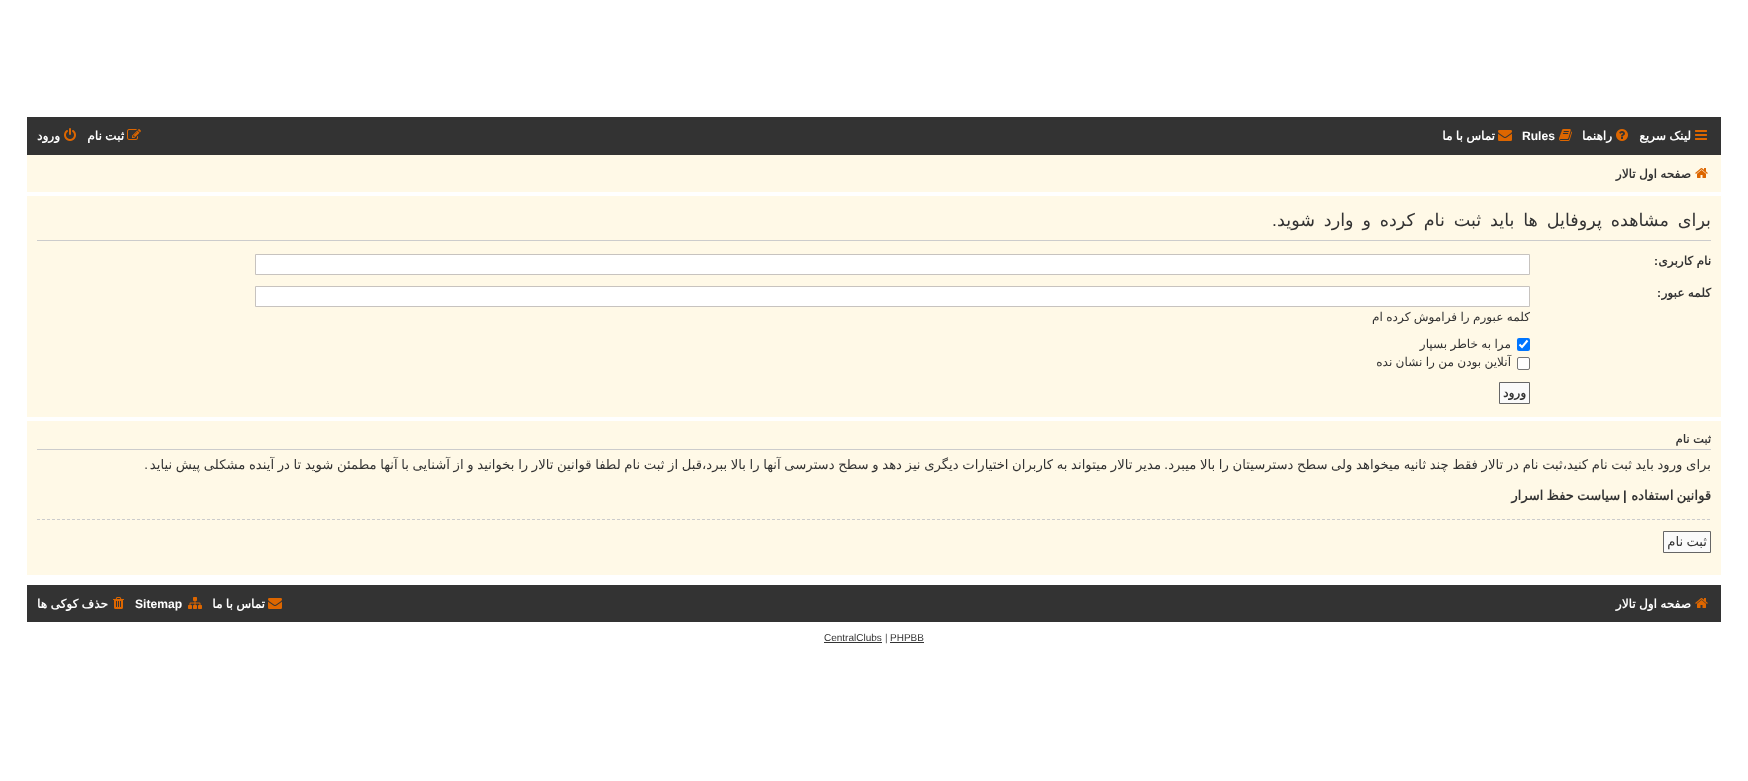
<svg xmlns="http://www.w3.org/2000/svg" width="1748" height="781">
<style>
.a{font:bold 12.1px DejaVu Sans;direction:rtl;fill:#fff}
.b{font:bold 12.1px Liberation Sans;fill:#fff}
.c{font:bold 12.1px DejaVu Sans;direction:rtl;fill:#333}
.d{font:17.6px DejaVu Sans;direction:rtl;fill:#333}
.e{font:17.6px Liberation Sans;direction:rtl;fill:#333}
.f{font:bold 12.1px Liberation Sans;direction:rtl;fill:#333}
.g{font:12.1px DejaVu Sans;direction:rtl;fill:#333}
.h{font:bold 11.5px DejaVu Sans;direction:rtl;fill:#333}
.i{font:13.2px DejaVu Sans;direction:rtl;fill:#333}
.j{font:13.2px Liberation Sans;direction:rtl;fill:#333}
.k{font:bold 13.2px DejaVu Sans;direction:rtl;fill:#333}
.l{font:bold 13.2px Liberation Sans;fill:#333}
.m{font:10px Liberation Sans;fill:#333}
.n{font:10px Liberation Sans;fill:#555}
</style>
<defs>
<clipPath id="clip1"><path d="M37 426h1674v144H37z"/></clipPath>
</defs>
<rect width="100%" height="100%" fill="#fff"/>
<path fill="#333" d="M27 117h1694v38H27z"/>
<image href="1.png" x="1695" y="130" width="12" height="10"/>
<image href="2.png" x="1616" y="129" width="12" height="12"/>
<image href="3.png" x="1559" y="129" width="13" height="12"/>
<image href="4.png" x="1498" y="130" width="14" height="11"/>
<image href="5.png" x="127" y="129" width="14" height="11"/>
<image href="6.png" x="64" y="128" width="12" height="13"/>
<path fill="#fff9e7" d="M27 155h1694v37H27z"/>
<image href="7.png" x="1695" y="168" width="13" height="10"/>
<path fill="#fff9e7" d="M27 196h1694v221H27z"/>
<path fill="#ccc" d="M37 240h1674v1H37z"/>
<path fill="#fff" stroke="#c7c3bf" d="M255.5 254.5h1274v20H255.5z"/>
<path fill="#fff" stroke="#c7c3bf" d="M255.5 286.5h1274v20H255.5z"/>
<rect fill="#0075ff" x="1517" y="338" width="13" height="13" rx="2"/>
<path fill="none" stroke="#fff" stroke-width="2.1" d="M1519.5 344.5l2.5 2.5l5.5-6.5"/>
<rect fill="#fff" stroke="#767676" x="1517.5" y="357.5" width="12" height="12" rx="1.5"/>
<path fill="#fafafa" stroke="#666" d="M1499.5 382.5h30v21H1499.5z"/>
<path fill="#fff9e7" d="M27 421h1694v154H27z"/>
<path fill="#ccc" d="M37 449h1674v1H37z"/>
<path fill="none" stroke="#ccc" stroke-dasharray="3 2" d="M37 519.5h1674"/>
<path fill="#fafafa" stroke="#666" d="M1663.5 531.5h47v21H1663.5z"/>
<path fill="#333" d="M27 585h1694v37H27z"/>
<image href="8.png" x="1695" y="598" width="13" height="10"/>
<image href="4.png" x="268" y="598" width="14" height="11"/>
<image href="9.png" x="188" y="597" width="14" height="12"/>
<image href="10.png" x="113" y="597" width="11" height="12"/>
<path fill="#333" d="M890 642h34v1H890z"/>
<path fill="#333" d="M824 642h58v1H824z"/>
<text class="a" x="1691" y="140" word-spacing="-0.5">لینک سریع</text>
<text class="a" x="1612" y="140">راهنما</text>
<text class="b" x="1522" y="140">Rules</text>
<text class="a" x="1495" y="140" word-spacing="-0.5">تماس با ما</text>
<text class="a" x="124" y="140" word-spacing="-0.5">ثبت نام</text>
<text class="a" x="60" y="140">ورود</text>
<text class="c" x="1691" y="178" word-spacing="-0.5">صفحه اول تالار</text>
<text class="d" x="1711" y="226" word-spacing="3.25">برای مشاهده پروفایل ها باید ثبت نام کرده و وارد شوید</text>
<text class="e" x="1277" y="226">.</text>
<text class="c" x="1711" y="265" word-spacing="-0.5">نام کاربری</text>
<text class="f" x="1658" y="265">:</text>
<text class="f" x="1661" y="297">:</text>
<text class="c" x="1711" y="297" word-spacing="-0.5">کلمه عبور</text>
<text class="g" x="1530" y="321" word-spacing="-0.5">کلمه عبورم را فراموش کرده ام</text>
<text class="g" x="1511" y="348" word-spacing="-0.5">مرا به خاطر بسپار</text>
<text class="g" x="1511" y="366" word-spacing="-0.5">آنلاین بودن من را نشان نده</text>
<text class="c" x="1526" y="397">ورود</text>
<text class="h" x="1711" y="443">ثبت نام</text>
<g clip-path="url(#clip1)">
<text class="i" x="1711" y="469" word-spacing="-0.55">برای ورود باید ثبت نام کنید،ثبت نام در تالار فقط چند ثانیه میخواهد ولی سطح دسترسیتان را بالا میبرد</text>
</g>
<text class="i" x="1161" y="469" word-spacing="-0.55">مدیر تالار میتواند به کاربران اختیارات دیگری نیز دهد و سطح دسترسی آنها را بالا ببرد،قبل از ثبت نام لطفا قوانین تالار را بخوانید و از آشنایی با آنها مطمئن شوید تا در آینده مشکلی پیش نیاید</text>
<text class="j" x="148" y="469">.</text>
<text class="j" x="1168" y="469">.</text>
<text class="k" x="1711" y="500" word-spacing="-1">قوانین استفاده</text>
<text class="l" x="1623" y="500">|</text>
<text class="k" x="1620" y="500" word-spacing="-1">سیاست حفظ اسرار</text>
<text class="i" x="1707" y="546" word-spacing="-1">ثبت نام</text>
<text class="a" x="1691" y="608" word-spacing="-0.5">صفحه اول تالار</text>
<text class="a" x="265" y="608" word-spacing="-0.5">تماس با ما</text>
<text class="b" x="135" y="608">Sitemap</text>
<text class="a" x="108" y="608" word-spacing="-0.5">حذف کوکی ها</text>
<text class="m" x="890" y="641">PHPBB</text>
<text class="n" x="885" y="641">|</text>
<text class="m" x="824" y="641">CentralClubs</text>
</svg>
